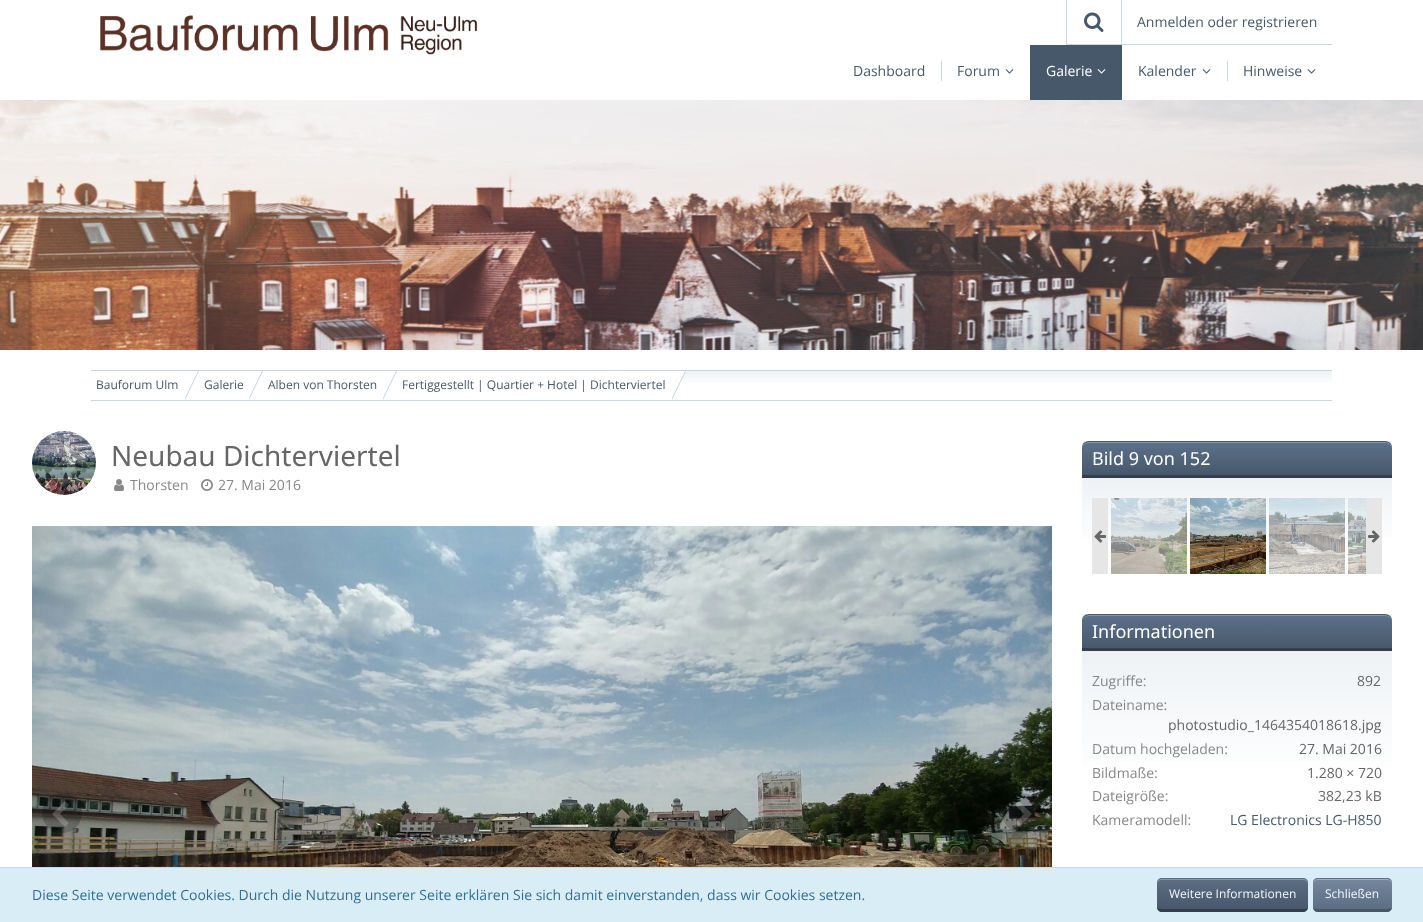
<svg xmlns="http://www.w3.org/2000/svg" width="1423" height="922">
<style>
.a{font:14px Open Sans;fill:#47586b}
.b{font:14px Open Sans;fill:#fff}
.c{font:12px Open Sans;fill:#47586b}
.d{font:28px Noto Sans;fill:#666}
.e{font:14px Open Sans;fill:#888}
.f{font:18px Noto Sans;fill:#fff}
.g{font:14px Open Sans;fill:#666}
.h{font:14px Open Sans;fill:#31708f}
.i{font:12px Open Sans;fill:#f2f7fc}
</style>
<defs>
<linearGradient id="g1" gradientUnits="userSpaceOnUse" x1="712" y1="371" x2="712" y2="400"><stop offset="0" stop-color="#eef2f5"/><stop offset="0.5" stop-color="#fff"/></linearGradient>
<linearGradient id="g2" gradientUnits="userSpaceOnUse" x1="1237" y1="441" x2="1237" y2="584"><stop offset="0.26" stop-color="#eef2f5"/><stop offset="0.75" stop-color="#fff"/></linearGradient>
<clipPath id="clip1"><path d="M1089 441h296c4 0 7 3 7 7v30h-310v-30c0-4 3-7 7-7z"/></clipPath>
<linearGradient id="g3" gradientUnits="userSpaceOnUse" x1="1237" y1="442" x2="1237" y2="475"><stop offset="0" stop-color="#5b718a"/><stop offset="1" stop-color="#47586b"/></linearGradient>
<linearGradient id="g4" gradientUnits="userSpaceOnUse" x1="1237" y1="614" x2="1237" y2="841"><stop offset="0.16" stop-color="#eef2f5"/><stop offset="0.75" stop-color="#fff"/></linearGradient>
<clipPath id="clip2"><path d="M1089 614h296c4 0 7 3 7 7v30h-310v-30c0-4 3-7 7-7z"/></clipPath>
<linearGradient id="g5" gradientUnits="userSpaceOnUse" x1="1237" y1="615" x2="1237" y2="648"><stop offset="0" stop-color="#5b718a"/><stop offset="1" stop-color="#47586b"/></linearGradient>
<clipPath id="clip3"><rect x="1157" y="878" width="151" height="34" rx="5"/></clipPath>
<linearGradient id="g6" gradientUnits="userSpaceOnUse" x1="1233" y1="879" x2="1233" y2="909"><stop offset="0" stop-color="#5c6e82"/><stop offset="1" stop-color="#47586b"/></linearGradient>
<clipPath id="clip4"><rect x="1313" y="878" width="79" height="34" rx="5"/></clipPath>
<linearGradient id="g7" gradientUnits="userSpaceOnUse" x1="1353" y1="879" x2="1353" y2="909"><stop offset="0" stop-color="#74879d"/><stop offset="1" stop-color="#5c6e82"/></linearGradient>
</defs>
<rect width="100%" height="100%" fill="#fff"/>
<image href="1.png" x="0" y="100" width="1423" height="250"/>
<image href="2.png" x="100" y="15" width="378" height="40"/>
<path fill="#c9d7de" d="M1066 44h266v1H1066z"/>
<path fill="#c9d7de" d="M1066 0h1v45H1066z"/>
<image href="3.png" x="1084" y="12" width="20" height="20"/>
<path fill="#c9d7de" d="M1121 0h1v45H1121z"/>
<path fill="#c9d7de" d="M941 61h1v20H941z"/>
<image href="4.png" x="1005" y="69" width="9" height="5"/>
<path fill="#47586b" d="M1030 45h92v55H1030z"/>
<image href="5.png" x="1097" y="69" width="9" height="5"/>
<image href="4.png" x="1202" y="69" width="9" height="5"/>
<path fill="#c9d7de" d="M1227 61h1v20H1227z"/>
<image href="4.png" x="1307" y="69" width="9" height="5"/>
<path fill="url(#g1)" d="M681 371h651v12H681z"/>
<path fill="#c9d7de" d="M91 370h1241v1H91z"/>
<path fill="#c9d7de" d="M91 400h1241v1H91z"/>
<path fill="#c9d7de" d="M185 371h14l-14 29z"/>
<path fill="#fff" d="M184 371h14l-14 29z"/>
<path fill="#c9d7de" d="M249 371h14l-14 29z"/>
<path fill="#fff" d="M248 371h14l-14 29z"/>
<path fill="#c9d7de" d="M383 371h14l-14 29z"/>
<path fill="#fff" d="M382 371h14l-14 29z"/>
<path fill="#c9d7de" d="M672 371h14l-14 29z"/>
<path fill="#fff" d="M671 371h14l-14 29z"/>
<image href="6.png" x="32" y="431" width="64" height="64"/>
<image href="7.png" x="114" y="479" width="10" height="12"/>
<image href="8.png" x="201" y="479" width="12" height="12"/>
<image href="9.png" x="32" y="526" width="1020" height="341"/>
<circle fill="#00000033" cx="62" cy="813" r="20"/>
<image href="10.png" x="52" y="801" width="17" height="26"/>
<circle fill="#00000033" cx="1022" cy="813" r="20"/>
<image href="11.png" x="1015" y="801" width="17" height="26"/>
<path fill="url(#g2)" d="M1082 441h310v97H1082z"/>
<g clip-path="url(#clip1)">
<path fill="url(#g3)" d="M1082 442h310v33H1082z"/>
</g>
<path fill="#8498ad" d="M1089 443h296c4 0 7 3 7 6c0-4-3-7-7-7h-296c-4 0-7 3-7 7c0-3 3-6 7-6z"/>
<path fill="#47586b" d="M1089 441c-4 0-7 3-7 7c0-3 3-6 7-6h296c4 0 7 3 7 6c0-4-3-7-7-7z"/>
<path fill="#333f4c" d="M1082 475h310v3H1082z"/>
<path fill="#e6e6e6" d="M1092 498h16v76H1092z"/>
<image href="12.png" x="1094" y="530" width="12" height="13"/>
<image href="13.png" x="1111" y="498" width="76" height="76"/>
<image href="14.png" x="1190" y="498" width="76" height="76"/>
<image href="15.png" x="1269" y="498" width="76" height="76"/>
<image href="16.png" x="1348" y="498" width="18" height="76"/>
<path fill="#e6e6e6" d="M1366 498h16v76H1366z"/>
<image href="17.png" x="1368" y="530" width="12" height="13"/>
<path fill="url(#g4)" d="M1082 614h310v151H1082z"/>
<g clip-path="url(#clip2)">
<path fill="url(#g5)" d="M1082 615h310v33H1082z"/>
</g>
<path fill="#8498ad" d="M1089 616h296c4 0 7 3 7 6c0-4-3-7-7-7h-296c-4 0-7 3-7 7c0-3 3-6 7-6z"/>
<path fill="#47586b" d="M1089 614c-4 0-7 3-7 7c0-3 3-6 7-6h296c4 0 7 3 7 6c0-4-3-7-7-7z"/>
<path fill="#333f4c" d="M1082 648h310v3H1082z"/>
<path fill="#d9edf7" d="M0 868h1423v54H0z"/>
<path fill="#bcdff1" d="M0 867h1423v1H0z"/>
<g clip-path="url(#clip3)">
<path fill="url(#g6)" d="M1157 879h151v30H1157z"/>
</g>
<path fill="#8498ad" d="M1162 880h141c3 0 5 2 5 4c0-2-1-4-3-5h-145c-2 1-3 3-3 5c0-2 2-4 5-4z"/>
<path fill="#5c6e82" d="M1162 878c-3 0-5 2-5 5c0-2 2-4 5-4h141c3 0 5 2 5 4c0-3-2-5-5-5z"/>
<path fill="#333f4c" d="M1303 912c3 0 5-2 5-5c0 1-2 2-5 2h-141c-3 0-5-1-5-2c0 3 2 5 5 5z"/>
<g clip-path="url(#clip4)">
<path fill="url(#g7)" d="M1313 879h79v30H1313z"/>
</g>
<path fill="#a1aebc" d="M1318 880h69c3 0 5 2 5 4c0-8-13-5-16-5h-46c-4 0-17-3-17 5c0-2 2-4 5-4z"/>
<path fill="#5c6e82" d="M1318 878c-3 0-5 2-5 5c0-2 2-4 5-4h69c3 0 5 2 5 4c0-3-2-5-5-5z"/>
<path fill="#475564" d="M1387 912c3 0 5-2 5-5c0 1-2 2-5 2h-69c-3 0-5-1-5-2c0 3 2 5 5 5z"/>
<text class="a" x="1137" y="27">Anmelden oder registrieren</text>
<text class="a" x="853" y="76">Dashboard</text>
<text class="a" x="957" y="76">Forum</text>
<text class="b" x="1046" y="76">Galerie</text>
<text class="a" x="1138" y="76">Kalender</text>
<text class="a" x="1243" y="76">Hinweise</text>
<text class="c" x="96" y="389">Bauforum Ulm</text>
<text class="c" x="204" y="389">Galerie</text>
<text class="c" x="268" y="389">Alben von Thorsten</text>
<text class="c" x="402" y="389">Fertiggestellt | Quartier + Hotel | Dichterviertel</text>
<text class="d" x="111" y="466">Neubau Dichterviertel</text>
<text class="e" x="130" y="490">Thorsten</text>
<text class="e" x="218" y="490">27. Mai 2016</text>
<text class="f" x="1092" y="465">Bild 9 von 152</text>
<text class="f" x="1092" y="638">Informationen</text>
<text class="e" x="1092" y="686">Zugriffe:</text>
<text class="g" x="1357" y="686">892</text>
<text class="e" x="1092" y="710">Dateiname:</text>
<text class="g" x="1168" y="730">photostudio_1464354018618.jpg</text>
<text class="e" x="1092" y="754">Datum hochgeladen:</text>
<text class="g" x="1299" y="754">27. Mai 2016</text>
<text class="e" x="1092" y="778">Bildmaße:</text>
<text class="g" x="1307" y="778">1.280 × 720</text>
<text class="e" x="1092" y="801">Dateigröße:</text>
<text class="g" x="1318" y="801">382,23 kB</text>
<text class="e" x="1092" y="825">Kameramodell:</text>
<text class="a" x="1230" y="825">LG Electronics LG-H850</text>
<text class="h" x="32" y="900">Diese Seite verwendet Cookies. Durch die Nutzung unserer Seite erklären Sie sich damit einverstanden, dass wir Cookies setzen.</text>
<text class="i" x="1169" y="898">Weitere Informationen</text>
<text class="i" x="1325" y="898">Schließen</text>
</svg>
